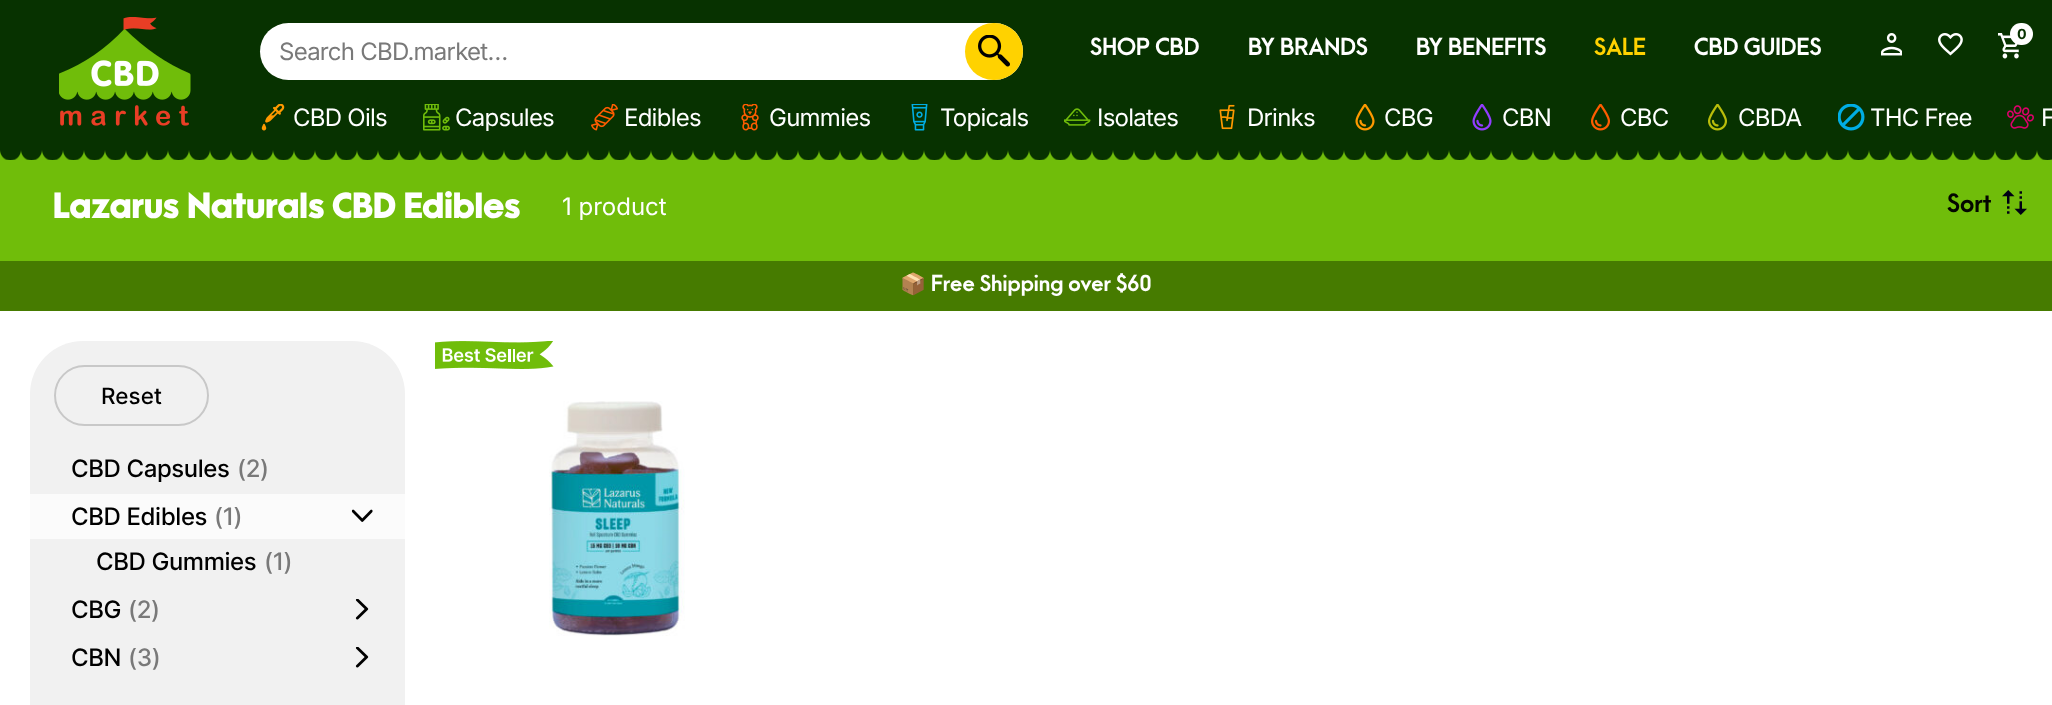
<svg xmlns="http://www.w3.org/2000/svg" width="2052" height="705">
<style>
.a{font:bold 14px Inter;fill:#073200}
.b{font:24px Inter;letter-spacing:-0.75px;fill:#797979}
.c{font:bold 22.5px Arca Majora;fill:#fff}
.d{font:bold 22.5px Arca Majora;fill:#ffd200}
.e{font:24px Inter;letter-spacing:-0.75px;fill:#fff}
.f{font:800 33px Arca Majora;fill:#fff}
.g{font:24px Inter;fill:#fff}
.h{font:bold 24px Arca Majora;fill:#030600}
.i{font:bold 21px Noto Color Emoji;fill:#fff}
.j{font:bold 21px Arca Majora;fill:#fff}
.k{font:500 22.5px Inter;fill:#000}
.l{font:500 24px Inter;letter-spacing:-0.4px;fill:#000}
.m{font:500 24px Inter;letter-spacing:-0.4px;fill:#797979}
</style>
<rect width="100%" height="100%" fill="#fff"/>
<path fill="#073200" d="M0 0h2052v149H0z"/>
<image href="1.png" x="59" y="17" width="132" height="109"/>
<image href="2.png" x="1881" y="33" width="21" height="23"/>
<image href="3.png" x="1938" y="33" width="25" height="23"/>
<image href="4.png" x="1998" y="33" width="21" height="26"/>
<rect fill="#fff" x="2010" y="23" width="23" height="22" rx="11"/>
<rect fill="#fff" x="260" y="23" width="763" height="57" rx="28.5"/>
<rect fill="#ffd200" x="965" y="23" width="58" height="57" rx="28.5"/>
<image href="5.png" x="978" y="35" width="32" height="32"/>
<image href="6.png" x="261" y="104" width="24" height="27"/>
<image href="7.png" x="423" y="104" width="27" height="27"/>
<image href="8.png" x="591" y="104" width="27" height="27"/>
<image href="9.png" x="741" y="104" width="18" height="27"/>
<image href="10.png" x="911" y="104" width="17" height="27"/>
<image href="11.png" x="1064" y="108" width="27" height="18"/>
<image href="12.png" x="1219" y="104" width="16" height="26"/>
<image href="13.png" x="1355" y="104" width="20" height="27"/>
<image href="14.png" x="1472" y="104" width="20" height="27"/>
<image href="15.png" x="1591" y="104" width="19" height="27"/>
<image href="16.png" x="1708" y="104" width="19" height="27"/>
<image href="17.png" x="1838" y="104" width="27" height="27"/>
<image href="18.png" x="2007" y="105" width="27" height="24"/>
<path fill="#70bd0a" d="M0 150h2052v111H0z"/>
<image href="19.png" x="0" y="149" width="2052" height="11"/>
<image href="20.png" x="2002" y="190" width="25" height="25"/>
<path fill="#467b00" d="M0 261h2052v50H0z"/>
<rect fill="#f1f1f1" x="30" y="341" width="375" height="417" rx="53"/>
<rect fill="none" stroke="#c8c8c8" stroke-width="2" x="55" y="366" width="153" height="59" rx="29.5"/>
<path fill="#fbfbfb" d="M30 494h375v45H30z"/>
<image href="21.png" x="351" y="509" width="22" height="13"/>
<image href="22.png" x="355" y="599" width="14" height="21"/>
<image href="22.png" x="355" y="647" width="14" height="21"/>
<image href="23.png" x="435" y="341" width="119" height="28"/>
<image href="24.png" x="549" y="401" width="136" height="235"/>
<text class="a" x="2017" y="39">0</text>
<text class="b" x="279" y="60">Search CBD.market…</text>
<text class="c" x="1090" y="55">SHOP CBD</text>
<text class="c" x="1248" y="55">BY BRANDS</text>
<text class="c" x="1416" y="55">BY BENEFITS</text>
<text class="d" x="1594" y="55">SALE</text>
<text class="c" x="1694" y="55">CBD GUIDES</text>
<text class="e" x="293" y="126">CBD Oils</text>
<text class="e" x="455" y="126">Capsules</text>
<text class="e" x="624" y="126">Edibles</text>
<text class="e" x="769" y="126">Gummies</text>
<text class="e" x="940" y="126">Topicals</text>
<text class="e" x="1097" y="126">Isolates</text>
<text class="e" x="1247" y="126">Drinks</text>
<text class="e" x="1384" y="126">CBG</text>
<text class="e" x="1502" y="126">CBN</text>
<text class="e" x="1620" y="126">CBC</text>
<text class="e" x="1738" y="126">CBDA</text>
<text class="e" x="1870" y="126">THC Free</text>
<text class="e" x="2041" y="126">F</text>
<text class="f" x="53" y="218">Lazarus Naturals CBD Edibles</text>
<text class="g" x="562" y="215">1 product</text>
<text class="h" x="1947" y="212">Sort</text>
<text class="i" x="900" y="291">📦</text>
<text class="j" x="931" y="291">Free Shipping over $60</text>
<text class="k" x="101" y="404">Reset</text>
<text class="l" x="71" y="477">CBD Capsules</text>
<text class="m" x="237" y="477">(2)</text>
<text class="l" x="71" y="525">CBD Edibles</text>
<text class="m" x="214" y="525">(1)</text>
<text class="l" x="96" y="570">CBD Gummies</text>
<text class="m" x="264" y="570">(1)</text>
<text class="l" x="71" y="618">CBG</text>
<text class="m" x="128" y="618">(2)</text>
<text class="l" x="71" y="666">CBN</text>
<text class="m" x="128" y="666">(3)</text>
</svg>
